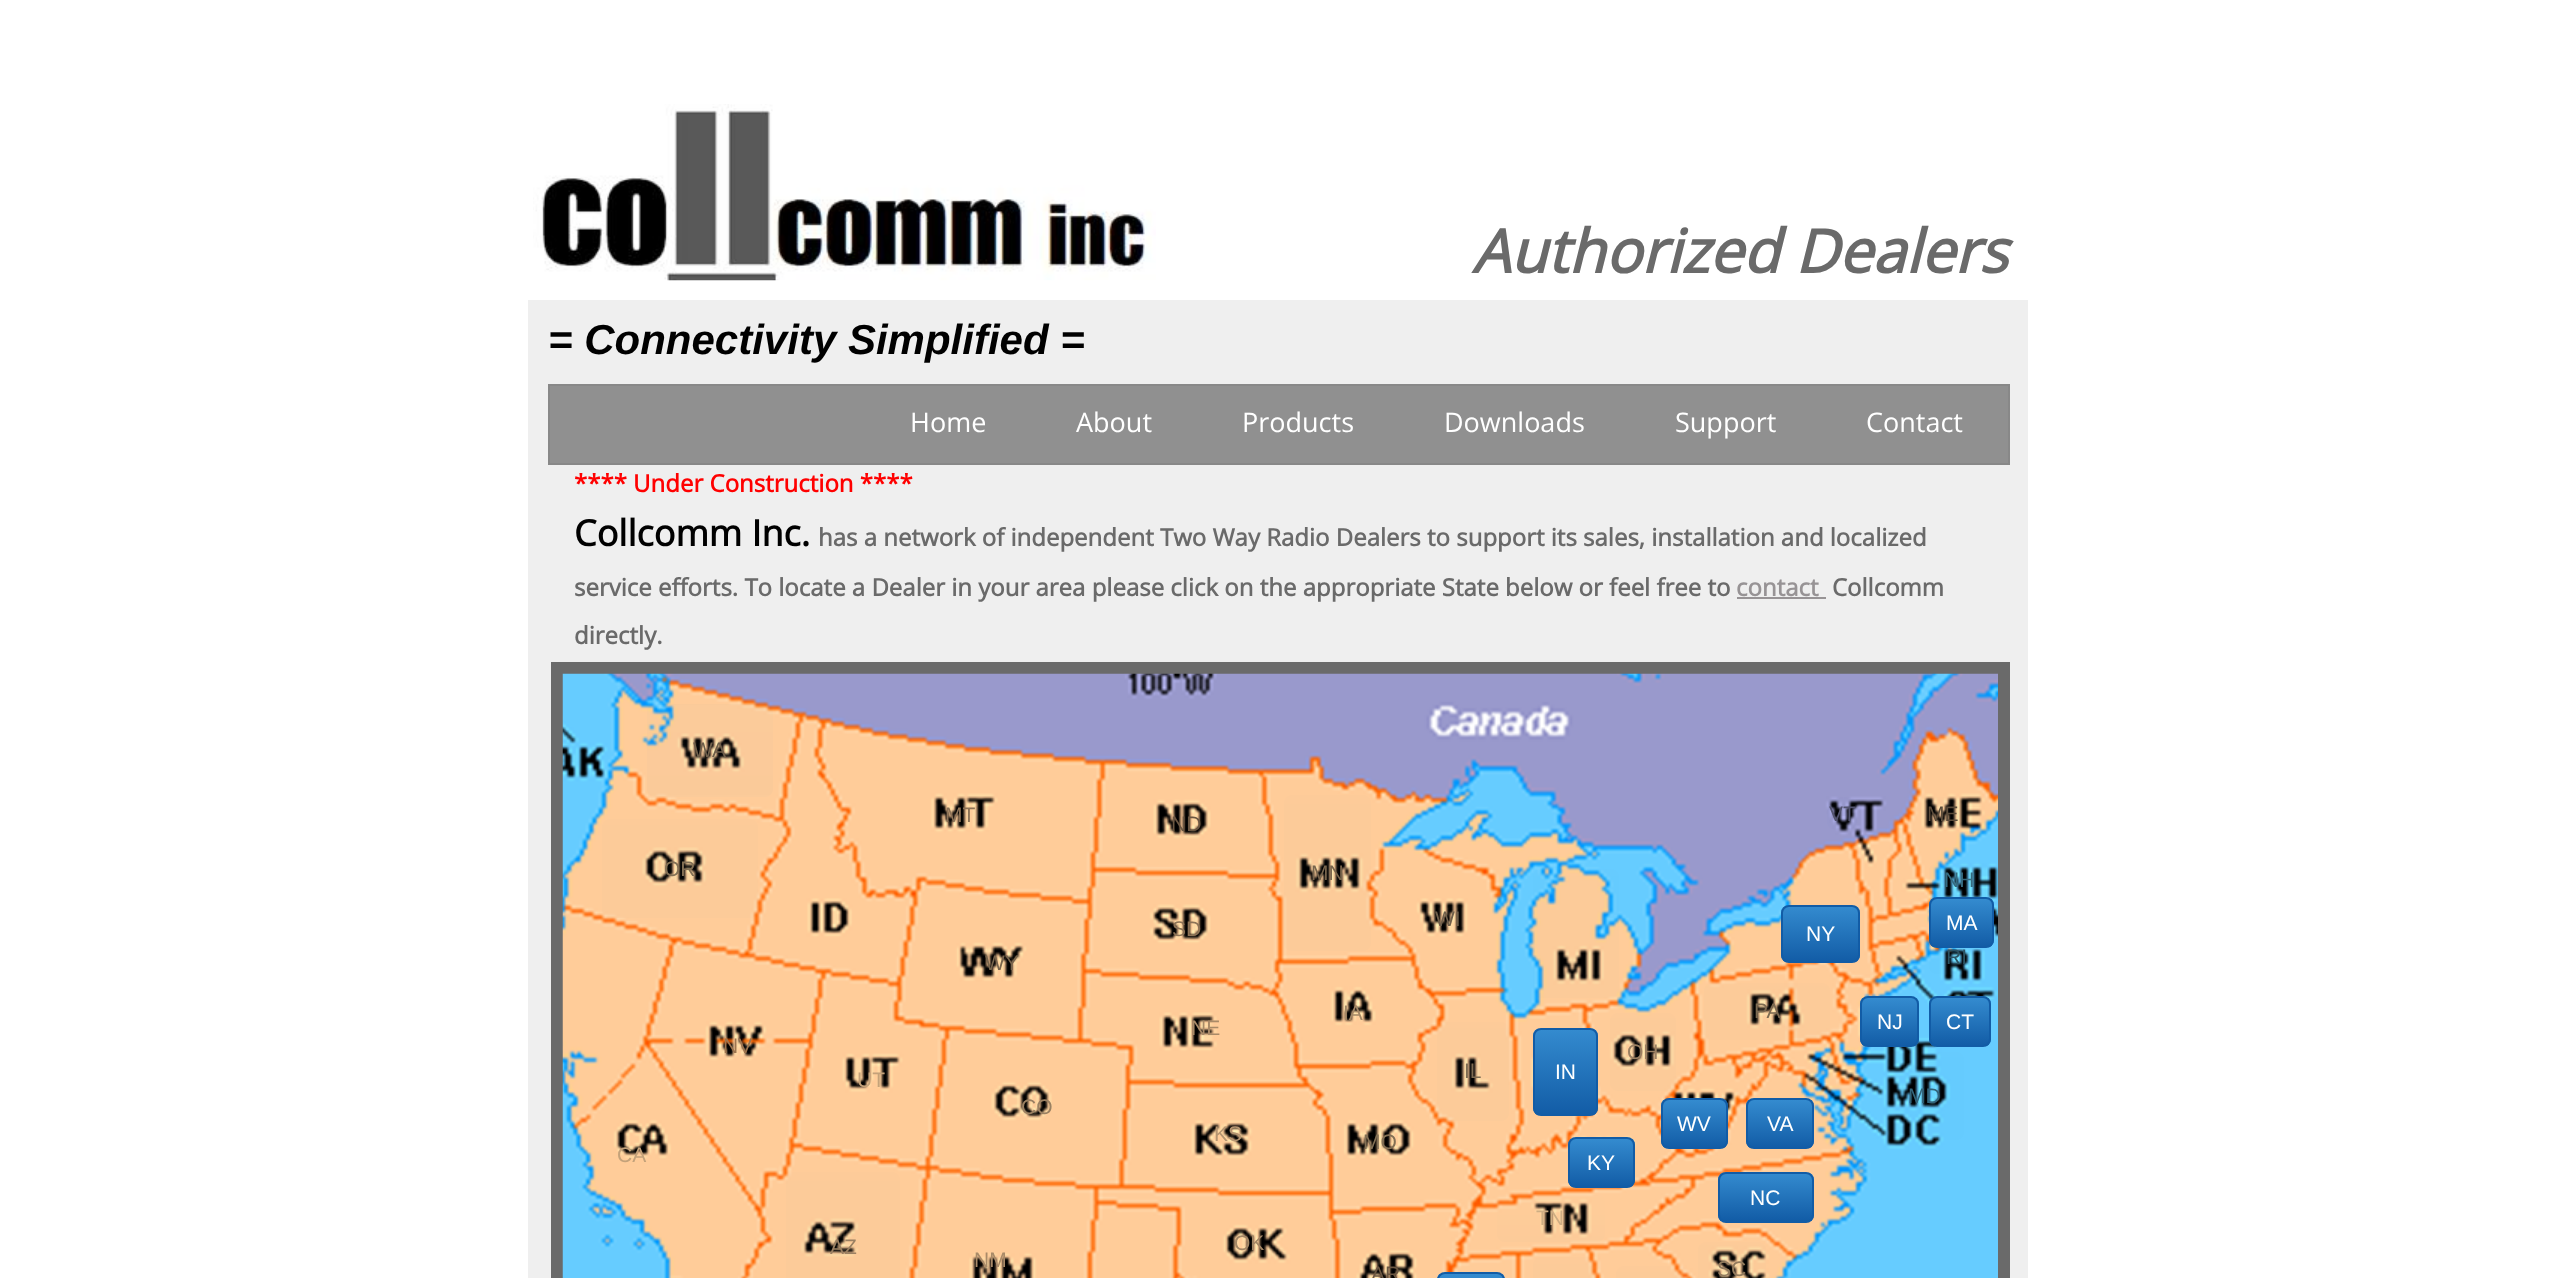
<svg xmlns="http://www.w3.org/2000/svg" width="2556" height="1278">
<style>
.a{font:italic bold 60px Open Sans;fill:#6a6a6a}
.b{font:italic bold 42px Liberation Sans;fill:#000}
.c{font:27px Open Sans;fill:#fff}
.d{font:bold 24px Open Sans;fill:#f00}
.e{font:bold 36px Open Sans;fill:#000}
.f{font:bold 24px Open Sans;fill:#6a6a6a}
.g{font:bold 24px Open Sans;fill:#979395}
.h{font:21px Liberation Sans;fill:#6f5f4b}
.i{font:21px Liberation Sans;fill:#8d7357}
.j{font:21px Liberation Sans;fill:#53546f}
.k{font:21px Liberation Sans;fill:#5b4c3b}
.l{font:21px Liberation Sans;fill:#6b5742}
.m{font:21px Liberation Sans;fill:#837055}
.n{font:21px Liberation Sans;fill:#78654d}
.o{font:21px Liberation Sans;fill:#366b80}
.p{font:21px Liberation Sans;fill:#fff}
.q{font:21px Liberation Sans;fill:#2c5362}
.r{font:21px Liberation Sans;fill:#a38766}
.s{font:21px Liberation Sans;fill:#7d6b52}
.t{font:21px Liberation Sans;fill:#a98a68}
.u{font:21px Liberation Sans;fill:#9e754f}
.v{font:21px Liberation Sans;fill:#9b8062}
.w{font:21px Liberation Sans;fill:#c4a27a}
.x{font:21px Liberation Sans;fill:#33657b}
.y{font:21px Liberation Sans;fill:#b59571}
.z{font:21px Liberation Sans;fill:#cead83}
.a1{font:21px Liberation Sans;fill:#927b5e}
</style>
<defs>
<clipPath id="clip1"><rect x="1781" y="905" width="79" height="58" rx="8"/></clipPath>
<linearGradient id="g1" gradientUnits="userSpaceOnUse" x1="1820" y1="906" x2="1820" y2="962"><stop offset="0" stop-color="#348bcf"/><stop offset="1" stop-color="#125ca6"/></linearGradient>
<clipPath id="clip2"><rect x="1929" y="897" width="65" height="51" rx="8"/></clipPath>
<linearGradient id="g2" gradientUnits="userSpaceOnUse" x1="1961" y1="899" x2="1961" y2="947"><stop offset="0" stop-color="#348bcf"/><stop offset="1" stop-color="#125ca6"/></linearGradient>
<clipPath id="clip3"><rect x="1860" y="996" width="59" height="51" rx="8"/></clipPath>
<linearGradient id="g3" gradientUnits="userSpaceOnUse" x1="1889" y1="998" x2="1889" y2="1046"><stop offset="0" stop-color="#348bcf"/><stop offset="1" stop-color="#125ca6"/></linearGradient>
<clipPath id="clip4"><rect x="1929" y="996" width="62" height="51" rx="8"/></clipPath>
<linearGradient id="g4" gradientUnits="userSpaceOnUse" x1="1960" y1="998" x2="1960" y2="1046"><stop offset="0" stop-color="#348bcf"/><stop offset="1" stop-color="#125ca6"/></linearGradient>
<clipPath id="clip5"><rect x="1533" y="1028" width="65" height="88" rx="8"/></clipPath>
<linearGradient id="g5" gradientUnits="userSpaceOnUse" x1="1565" y1="1029" x2="1565" y2="1115"><stop offset="0" stop-color="#348bcf"/><stop offset="1" stop-color="#125ca6"/></linearGradient>
<clipPath id="clip6"><rect x="1661" y="1098" width="67" height="51" rx="8"/></clipPath>
<linearGradient id="g6" gradientUnits="userSpaceOnUse" x1="1694" y1="1100" x2="1694" y2="1148"><stop offset="0" stop-color="#348bcf"/><stop offset="1" stop-color="#125ca6"/></linearGradient>
<clipPath id="clip7"><rect x="1746" y="1098" width="68" height="51" rx="8"/></clipPath>
<linearGradient id="g7" gradientUnits="userSpaceOnUse" x1="1780" y1="1100" x2="1780" y2="1148"><stop offset="0" stop-color="#348bcf"/><stop offset="1" stop-color="#125ca6"/></linearGradient>
<clipPath id="clip8"><rect x="1568" y="1137" width="67" height="51" rx="8"/></clipPath>
<linearGradient id="g8" gradientUnits="userSpaceOnUse" x1="1601" y1="1139" x2="1601" y2="1187"><stop offset="0" stop-color="#348bcf"/><stop offset="1" stop-color="#125ca6"/></linearGradient>
<clipPath id="clip9"><rect x="1718" y="1172" width="96" height="51" rx="8"/></clipPath>
<linearGradient id="g9" gradientUnits="userSpaceOnUse" x1="1766" y1="1173" x2="1766" y2="1221"><stop offset="0" stop-color="#348bcf"/><stop offset="1" stop-color="#125ca6"/></linearGradient>
<clipPath id="clip10"><rect x="1437" y="1272" width="68" height="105" rx="8"/></clipPath>
<linearGradient id="g10" gradientUnits="userSpaceOnUse" x1="1471" y1="1274" x2="1471" y2="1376"><stop offset="0" stop-color="#348bcf"/><stop offset="1" stop-color="#125ca6"/></linearGradient>
</defs>
<rect width="100%" height="100%" fill="#fff"/>
<path fill="#efefef" d="M528 300h1500v978H528z"/>
<image href="1.png" x="533" y="104" width="623" height="177"/>
<path fill="#909090" stroke="#888" stroke-width="2" d="M549 385h1460v79H549z"/>
<path fill="#979395" d="M1737 597h89v2H1737z"/>
<path fill="none" stroke="#6a6a6a" stroke-width="12" d="M557 668h1447v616H557z"/>
<image href="2.png" x="562" y="673" width="1436" height="605"/>
<g clip-path="url(#clip1)">
<path fill="url(#g1)" d="M1781 906h79v56H1781z"/>
</g>
<rect fill="none" stroke="#125ca6" stroke-width="2" x="1782" y="906" width="77" height="56" rx="7"/>
<g clip-path="url(#clip2)">
<path fill="url(#g2)" d="M1929 899h65v48H1929z"/>
</g>
<rect fill="none" stroke="#125ca6" stroke-width="2" x="1930" y="898" width="63" height="49" rx="7"/>
<g clip-path="url(#clip3)">
<path fill="url(#g3)" d="M1860 998h59v48H1860z"/>
</g>
<rect fill="none" stroke="#125ca6" stroke-width="2" x="1861" y="997" width="57" height="49" rx="7"/>
<g clip-path="url(#clip4)">
<path fill="url(#g4)" d="M1929 998h62v48H1929z"/>
</g>
<rect fill="none" stroke="#125ca6" stroke-width="2" x="1930" y="997" width="60" height="49" rx="7"/>
<g clip-path="url(#clip5)">
<path fill="url(#g5)" d="M1533 1029h65v86H1533z"/>
</g>
<rect fill="none" stroke="#125ca6" stroke-width="2" x="1534" y="1029" width="63" height="86" rx="7"/>
<g clip-path="url(#clip6)">
<path fill="url(#g6)" d="M1661 1100h67v48H1661z"/>
</g>
<rect fill="none" stroke="#125ca6" stroke-width="2" x="1662" y="1099" width="65" height="49" rx="7"/>
<g clip-path="url(#clip7)">
<path fill="url(#g7)" d="M1746 1100h68v48H1746z"/>
</g>
<rect fill="none" stroke="#125ca6" stroke-width="2" x="1747" y="1099" width="66" height="49" rx="7"/>
<g clip-path="url(#clip8)">
<path fill="url(#g8)" d="M1568 1139h67v48H1568z"/>
</g>
<rect fill="none" stroke="#125ca6" stroke-width="2" x="1569" y="1138" width="65" height="49" rx="7"/>
<g clip-path="url(#clip9)">
<path fill="url(#g9)" d="M1718 1173h96v48H1718z"/>
</g>
<rect fill="none" stroke="#125ca6" stroke-width="2" x="1719" y="1173" width="94" height="49" rx="7"/>
<g clip-path="url(#clip10)">
<path fill="url(#g10)" d="M1437 1274h68v4H1437z"/>
</g>
<rect fill="none" stroke="#125ca6" stroke-width="2" x="1438" y="1273" width="66" height="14" rx="7"/>
<text class="a" x="1472" y="273">Authorized Dealers</text>
<text class="b" x="548" y="354">= Connectivity Simplified =</text>
<text class="c" x="910" y="432">Home</text>
<text class="c" x="1076" y="432">About</text>
<text class="c" x="1242" y="432">Products</text>
<text class="c" x="1444" y="432">Downloads</text>
<text class="c" x="1675" y="432">Support</text>
<text class="c" x="1866" y="432">Contact</text>
<text class="d" x="574" y="492">**** Under Construction ****</text>
<text class="e" x="574" y="546">Collcomm Inc.</text>
<text class="f" x="818" y="546">has a network of independent Two Way Radio Dealers to support its sales, installation and localized</text>
<text class="f" x="574" y="596">service efforts. To locate a Dealer in your area please click on the appropriate State below or feel free to</text>
<text class="g" x="1736" y="596">contact</text>
<text class="f" x="1832" y="596">Collcomm</text>
<text class="f" x="574" y="644">directly.</text>
<text class="h" x="693" y="757">WA</text>
<text class="i" x="945" y="822">MT</text>
<text class="j" x="1829" y="821">VT</text>
<text class="k" x="1927" y="821">ME</text>
<text class="l" x="1171" y="831">ND</text>
<text class="m" x="664" y="876">OR</text>
<text class="n" x="1311" y="880">MN</text>
<text class="o" x="1944" y="887">NH</text>
<text class="i" x="1172" y="936">SD</text>
<text class="h" x="1435" y="926">WI</text>
<text class="p" x="1806" y="941">NY</text>
<text class="p" x="1946" y="930">MA</text>
<text class="n" x="985" y="970">WY</text>
<text class="q" x="1946" y="964">RI</text>
<text class="r" x="1343" y="1020">IA</text>
<text class="s" x="1754" y="1018">PA</text>
<text class="t" x="1191" y="1035">NE</text>
<text class="p" x="1877" y="1029">NJ</text>
<text class="p" x="1946" y="1029">CT</text>
<text class="u" x="723" y="1053">NV</text>
<text class="v" x="1627" y="1059">OH</text>
<text class="w" x="857" y="1087">UT</text>
<text class="s" x="1464" y="1078">IL</text>
<text class="p" x="1555" y="1079">IN</text>
<text class="x" x="1908" y="1103">MD</text>
<text class="v" x="1021" y="1114">CO</text>
<text class="p" x="1677" y="1131">WV</text>
<text class="p" x="1767" y="1131">VA</text>
<text class="y" x="1214" y="1141">KS</text>
<text class="m" x="1363" y="1149">MO</text>
<text class="w" x="617" y="1162">CA</text>
<text class="p" x="1587" y="1170">KY</text>
<text class="p" x="1750" y="1205">NC</text>
<text class="z" x="1536" y="1225">TN</text>
<text class="v" x="830" y="1254">AZ</text>
<text class="r" x="1234" y="1250">OK</text>
<text class="t" x="974" y="1267">NM</text>
<text class="l" x="1371" y="1281">AR</text>
<text class="a1" x="1717" y="1276">SC</text>
</svg>
